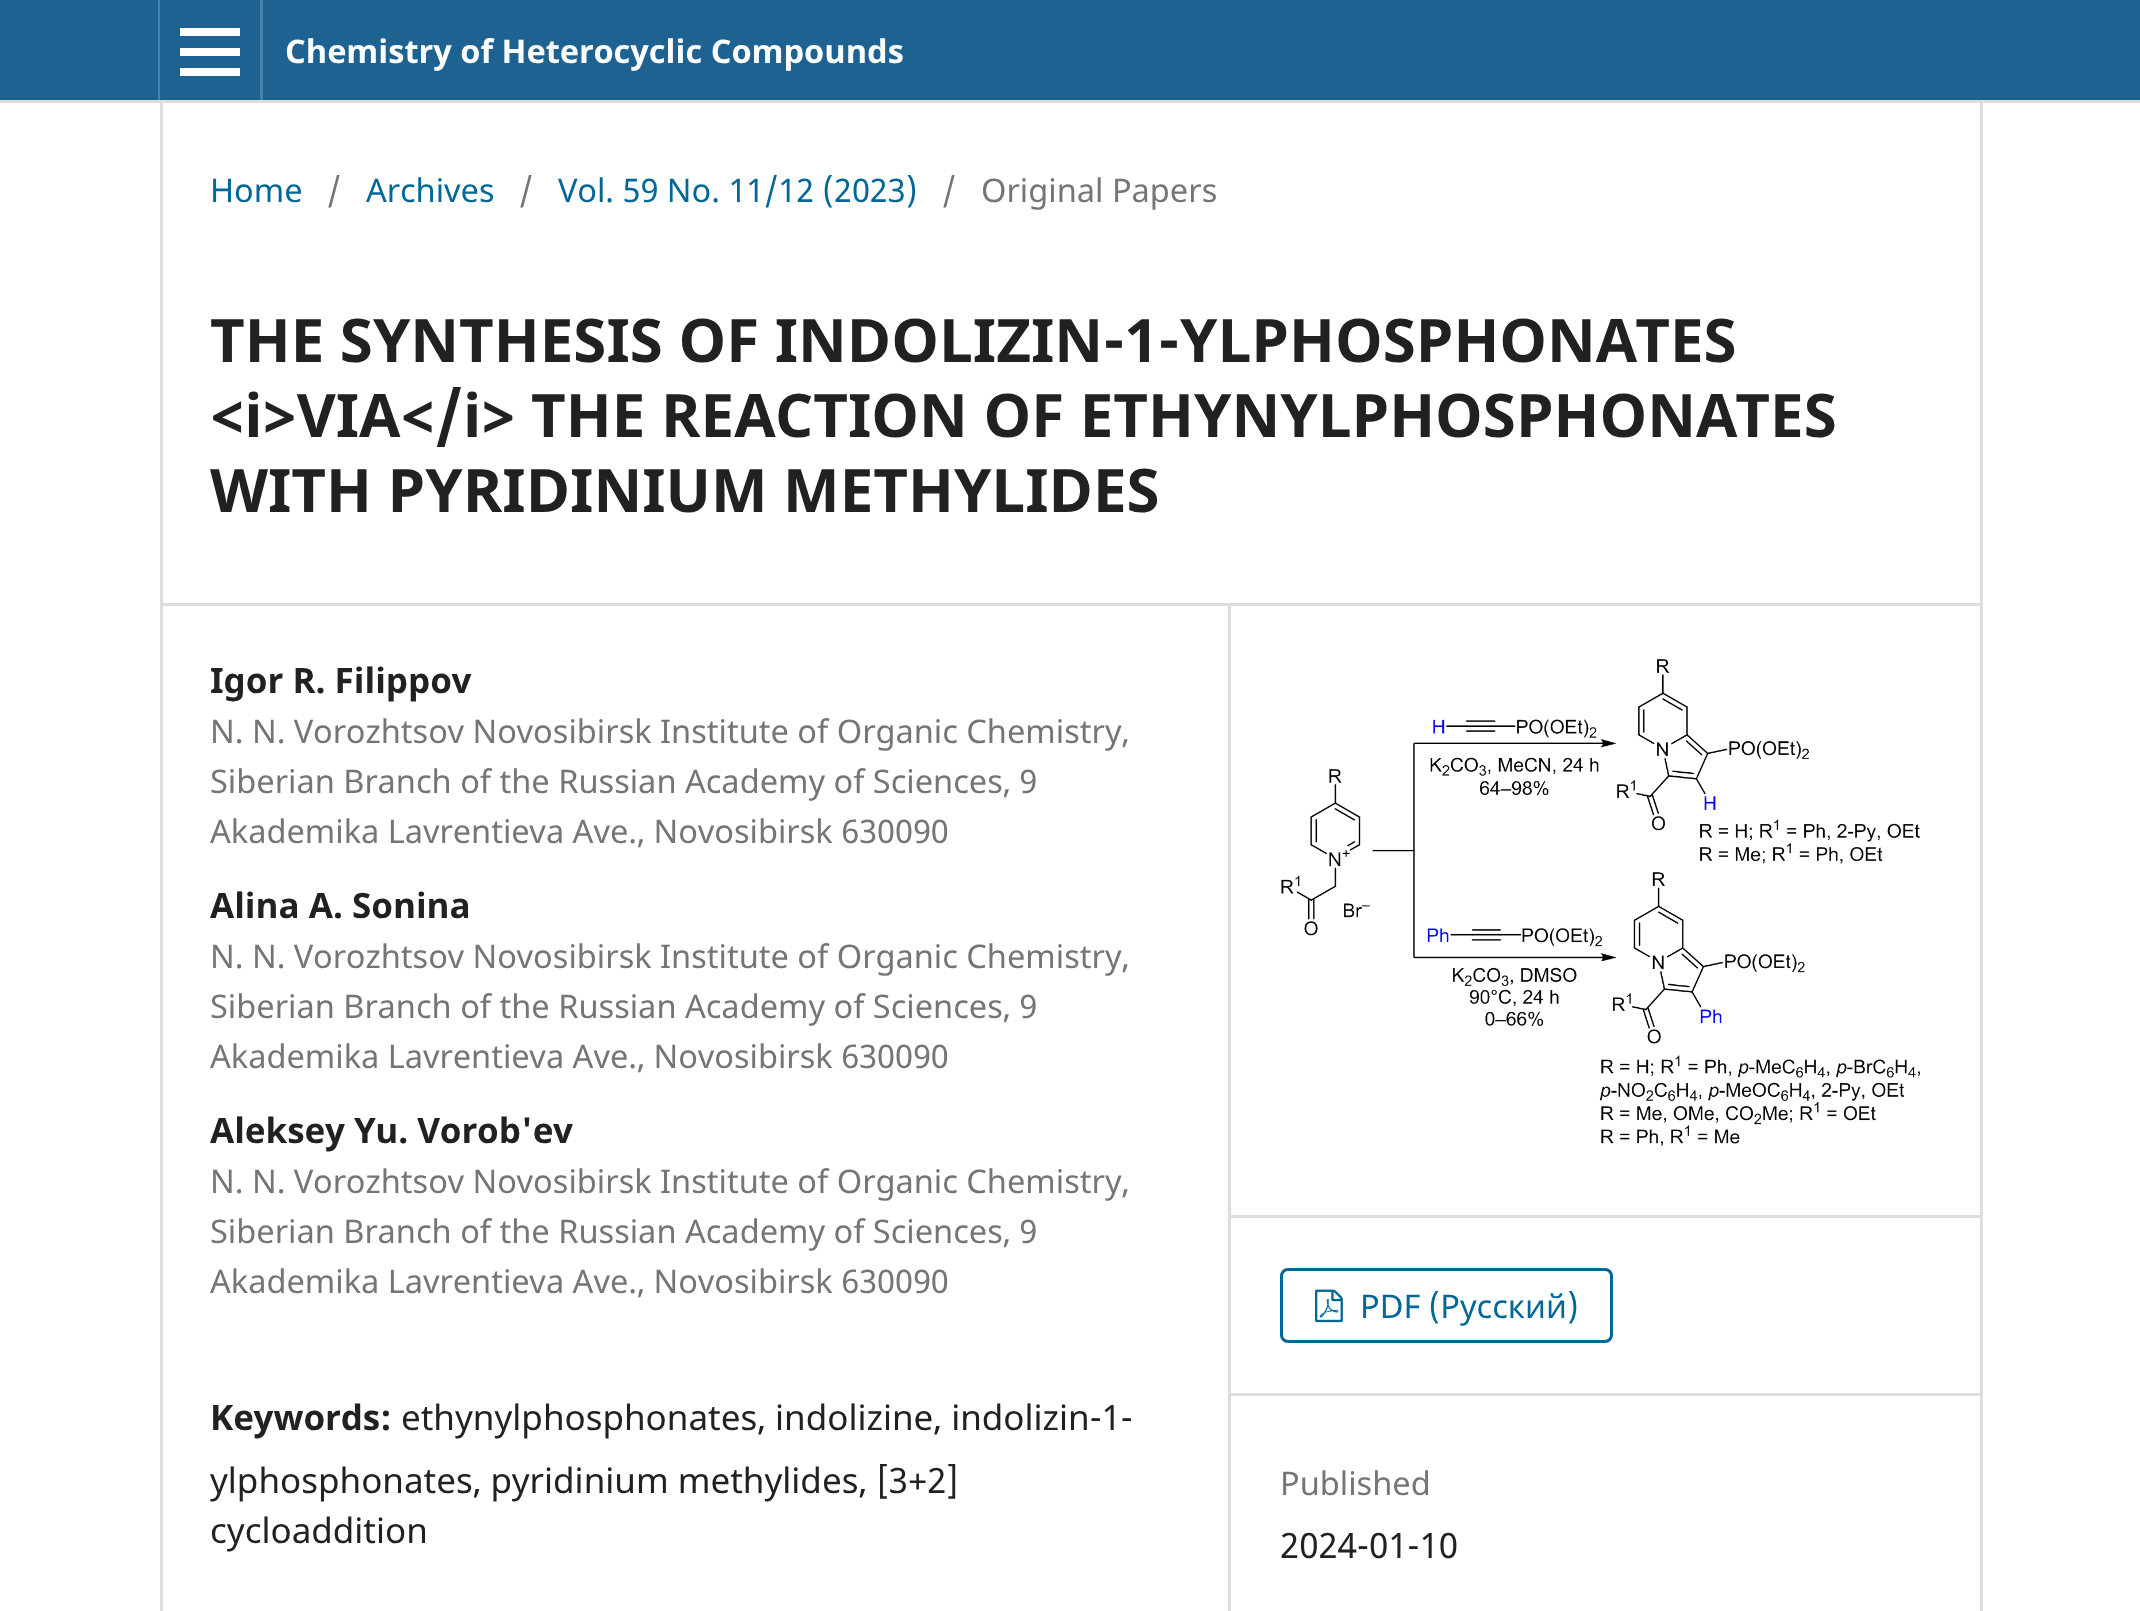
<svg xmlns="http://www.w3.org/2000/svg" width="2140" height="1611">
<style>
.a{font:bold 32.55px Noto Sans;fill:#fff}
.b{font:32.55px Noto Sans;fill:#006798}
.c{font:32.55px Noto Sans;fill:#757575}
.d{font:bold 60px Noto Sans;fill:#212121}
.e{font:bold 35px Noto Sans;fill:#212121}
.f{font:35px Noto Sans;fill:#212121}
</style>
<rect width="100%" height="100%" fill="#fff"/>
<path fill="#1e6292" d="M0 0h2140v100H0z"/>
<path fill="#ddd" d="M0 100h2140v3H0z"/>
<path fill="#4b81a8" d="M158 0h2v100H158z"/>
<path fill="#4b81a8" d="M260 0h3v100H260z"/>
<path fill="#fff" d="M180 68h60v8H180z"/>
<path fill="#fff" d="M180 28h60v8H180z"/>
<path fill="#fff" d="M180 48h60v8H180z"/>
<path fill="#ddd" d="M160 603h1820v3H160z"/>
<path fill="#ddd" d="M160 103h3v1508H160z"/>
<path fill="#ddd" d="M1228 605h3v1006H1228z"/>
<path fill="#ddd" d="M1230 1215h750v3H1230z"/>
<image href="1.png" x="1281" y="659" width="639" height="487"/>
<path fill="#ddd" d="M1230 1393h750v3H1230z"/>
<rect fill="none" stroke="#006798" stroke-width="3" x="1281.5" y="1269.5" width="330" height="72" rx="6.5"/>
<image href="2.png" x="1315" y="1289" width="28" height="34"/>
<path fill="#ddd" d="M1980 103h3v1508H1980z"/>
<text class="a" x="285" y="63">Chemistry of Heterocyclic Compounds</text>
<text class="b" x="210" y="202">Home</text>
<text class="c" x="327" y="202">/</text>
<text class="b" x="366" y="202">Archives</text>
<text class="c" x="519" y="202">/</text>
<text class="b" x="558" y="202">Vol. 59 No. 11/12 (2023)</text>
<text class="c" x="942" y="202">/</text>
<text class="c" x="981" y="202">Original Papers</text>
<text class="d" x="210" y="362">THE SYNTHESIS OF INDOLIZIN-1-YLPHOSPHONATES</text>
<text class="d" x="210" y="437">&lt;i&gt;VIA&lt;/i&gt; THE REACTION OF ETHYNYLPHOSPHONATES</text>
<text class="d" x="210" y="512">WITH PYRIDINIUM METHYLIDES</text>
<text class="e" x="210" y="693">Igor R. Filippov</text>
<text class="c" x="210" y="743">N. N. Vorozhtsov Novosibirsk Institute of Organic Chemistry,</text>
<text class="c" x="210" y="793">Siberian Branch of the Russian Academy of Sciences, 9</text>
<text class="c" x="210" y="843">Akademika Lavrentieva Ave., Novosibirsk 630090</text>
<text class="e" x="210" y="918">Alina А. Sonina</text>
<text class="c" x="210" y="968">N. N. Vorozhtsov Novosibirsk Institute of Organic Chemistry,</text>
<text class="c" x="210" y="1018">Siberian Branch of the Russian Academy of Sciences, 9</text>
<text class="c" x="210" y="1068">Akademika Lavrentieva Ave., Novosibirsk 630090</text>
<text class="e" x="210" y="1143">Aleksey Yu. Vorob'ev</text>
<text class="c" x="210" y="1193">N. N. Vorozhtsov Novosibirsk Institute of Organic Chemistry,</text>
<text class="c" x="210" y="1243">Siberian Branch of the Russian Academy of Sciences, 9</text>
<text class="c" x="210" y="1293">Akademika Lavrentieva Ave., Novosibirsk 630090</text>
<text class="e" x="210" y="1430">Keywords:</text>
<text class="f" x="401" y="1430">ethynylphosphonates, indolizine, indolizin-1-</text>
<text class="f" x="210" y="1493">ylphosphonates, pyridinium methylides, [3+2]</text>
<text class="f" x="210" y="1543">cycloaddition</text>
<text class="b" x="1360" y="1318">PDF (Русский)</text>
<text class="c" x="1280" y="1495">Published</text>
<text class="f" x="1280" y="1558">2024-01-10</text>
</svg>
